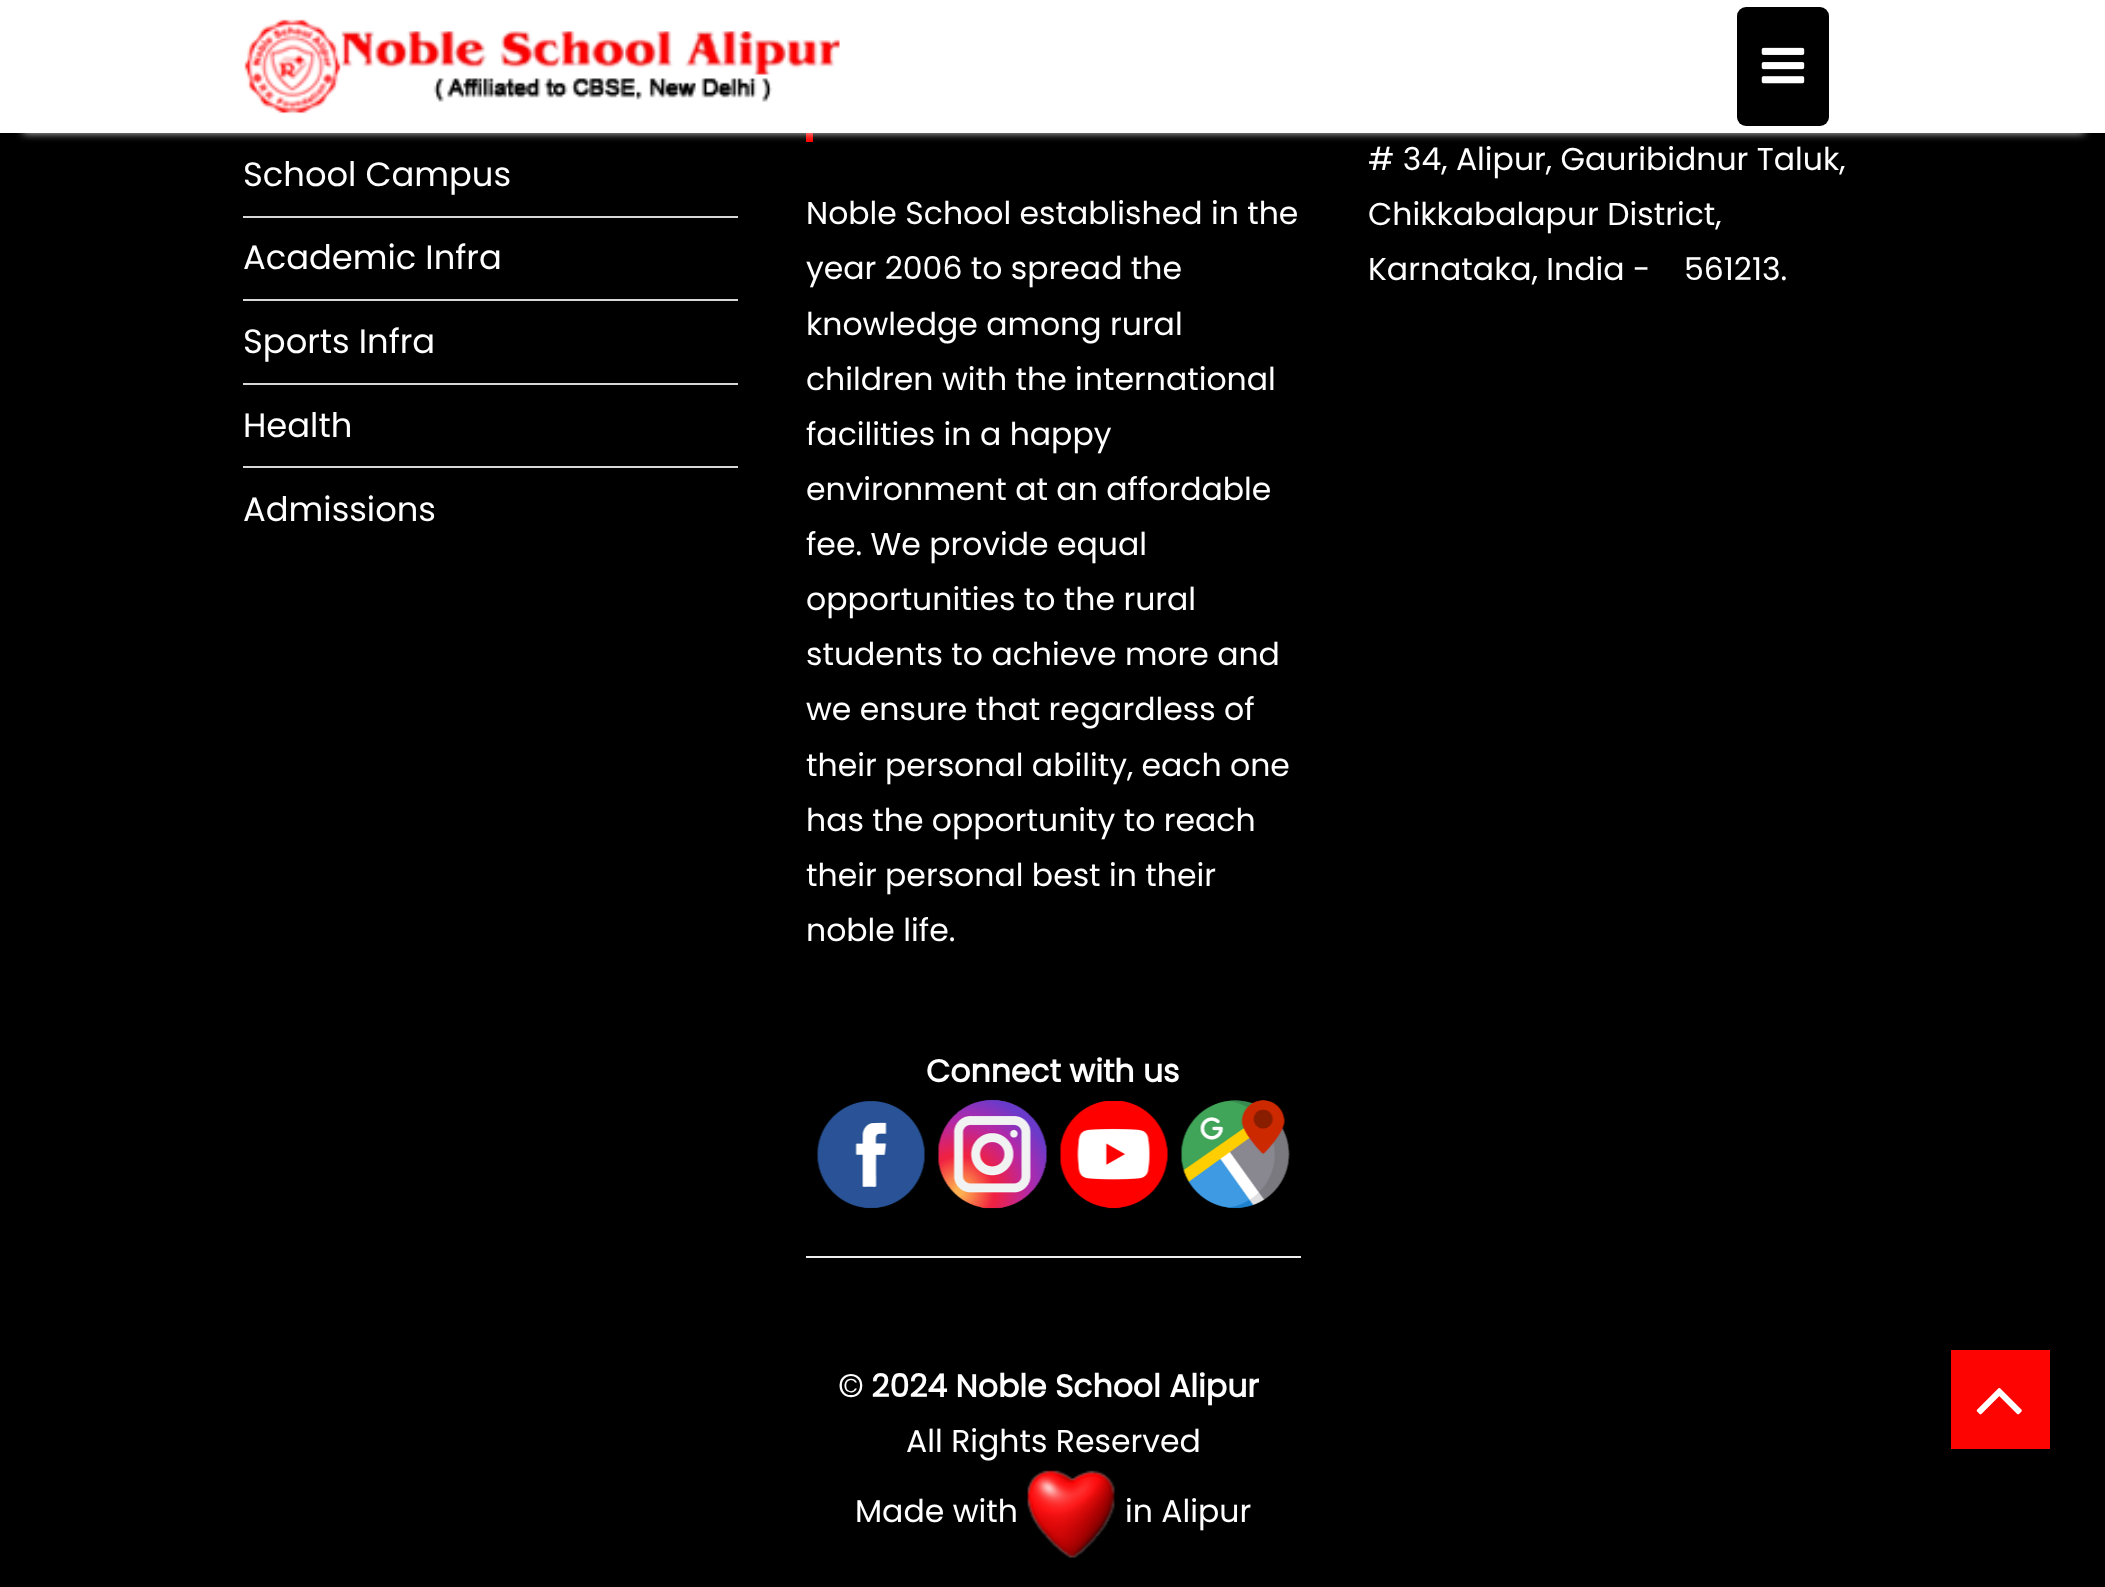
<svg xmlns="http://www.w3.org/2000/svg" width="2105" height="1587">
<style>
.a{font:33.75px Poppins;fill:#fff}
.b{font:31.5px Poppins;fill:#fff}
.c{font:bold 31.5px Poppins;fill:#fff}
</style>
<rect width="100%" height="100%" fill="#000"/>
<path fill="#fd0301" d="M806 133h7v9H806z"/>
<path fill="#eeeeeee6" filter="blur(4.5px)" d="M23 45h2061v88H23z"/>
<path fill="#fff" d="M0 0h2105v133H0z"/>
<image href="1.png" x="244" y="19" width="596" height="95"/>
<rect fill="#000" x="1737" y="7" width="92" height="119" rx="9"/>
<image href="2.png" x="1761" y="47" width="44" height="37"/>
<path fill="#d7d7d7" d="M243 216h495v2H243z"/>
<path fill="#d7d7d7" d="M243 299h495v2H243z"/>
<path fill="#d7d7d7" d="M243 383h495v2H243z"/>
<path fill="#d7d7d7" d="M243 466h495v2H243z"/>
<image href="3.png" x="817" y="1101" width="108" height="108"/>
<image href="4.png" x="938" y="1100" width="109" height="109"/>
<image href="5.png" x="1060" y="1101" width="109" height="108"/>
<image href="6.png" x="1181" y="1100" width="109" height="109"/>
<path fill="#eee" d="M806 1256h495v2H806z"/>
<image href="7.png" x="1027" y="1470" width="88" height="88"/>
<path fill="#fd0301" d="M1951 1350h99v99H1951z"/>
<image href="8.png" x="1976" y="1388" width="46" height="27"/>
<text class="a" x="243" y="186">School Campus</text>
<text class="a" x="243" y="269">Academic Infra</text>
<text class="a" x="243" y="353">Sports Infra</text>
<text class="a" x="243" y="437">Health</text>
<text class="a" x="243" y="521">Admissions</text>
<text class="b" x="806" y="224">Noble School established in the</text>
<text class="b" x="806" y="279">year 2006 to spread the</text>
<text class="b" x="806" y="335">knowledge among rural</text>
<text class="b" x="806" y="390">children with the international</text>
<text class="b" x="806" y="445">facilities in a happy</text>
<text class="b" x="806" y="500">environment at an affordable</text>
<text class="b" x="806" y="555">fee. We provide equal</text>
<text class="b" x="806" y="610">opportunities to the rural</text>
<text class="b" x="806" y="665">students to achieve more and</text>
<text class="b" x="806" y="720">we ensure that regardless of</text>
<text class="b" x="806" y="776">their personal ability, each one</text>
<text class="b" x="806" y="831">has the opportunity to reach</text>
<text class="b" x="806" y="886">their personal best in their</text>
<text class="b" x="806" y="941">noble life.</text>
<text class="b" x="1368" y="170"># 34, Alipur, Gauribidnur Taluk,</text>
<text class="b" x="1368" y="225">Chikkabalapur District,</text>
<text class="b" x="1368" y="280">Karnataka, India -</text>
<text class="b" x="1684" y="280">561213.</text>
<text class="c" x="926" y="1082">Connect with us</text>
<text class="c" x="838" y="1397">© 2024 Noble School Alipur</text>
<text class="b" x="906" y="1452">All Rights Reserved</text>
<text class="b" x="855" y="1522">Made with</text>
<text class="b" x="1125" y="1522">in Alipur</text>
</svg>
